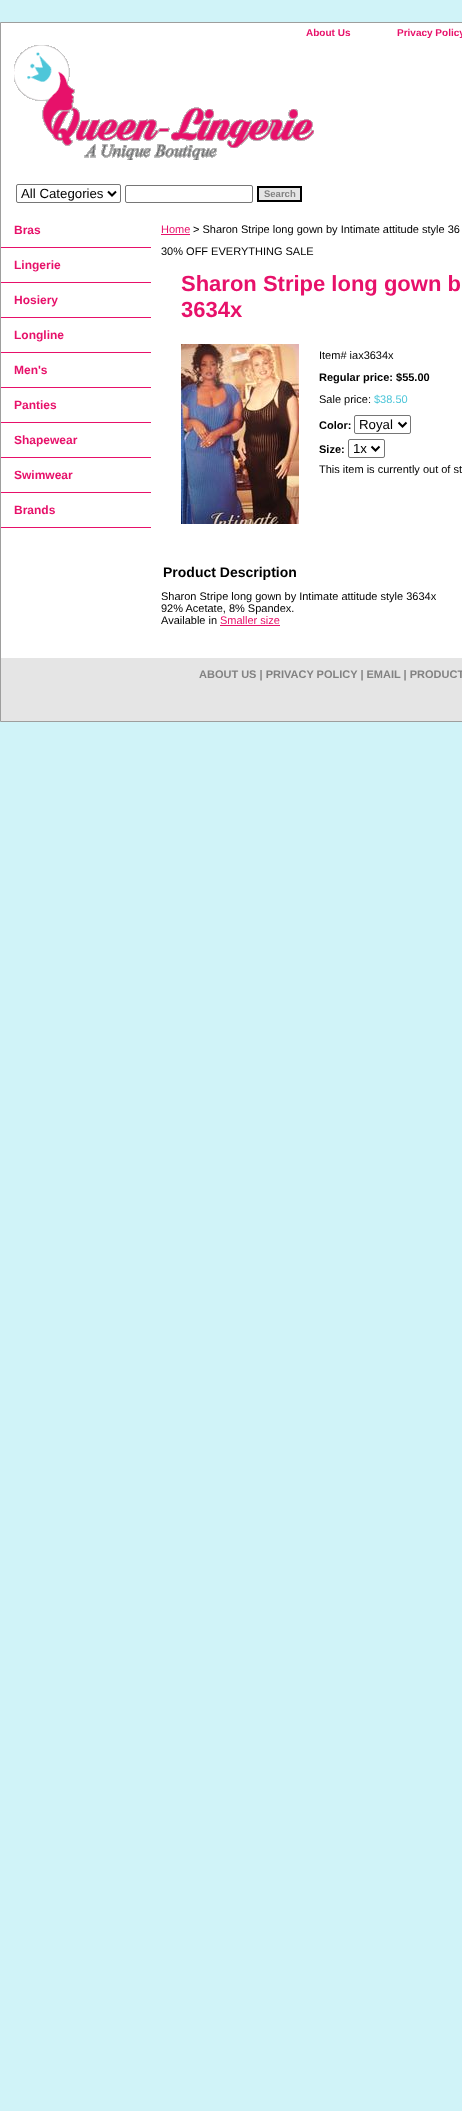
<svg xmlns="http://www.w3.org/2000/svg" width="462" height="2111">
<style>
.a{font:bold 10px Liberation Sans;fill:#e7116a}
.b{font:13.25px Liberation Sans;fill:#000}
.c{font:bold 9.5px Liberation Sans;fill:#828282}
.d{font:bold 12px Liberation Sans;fill:#e7116a}
.e{font:11px Liberation Sans;fill:#e7116a}
.f{font:11px Liberation Sans;fill:#000}
.g{font:bold 22px Liberation Sans;fill:#e7116a}
.h{font:bold 11px Liberation Sans;fill:#000}
.i{font:11px Liberation Sans;fill:#4ec6d9}
.j{font:bold 14px Liberation Sans;fill:#000}
.k{font:bold 11px Liberation Sans;fill:#828282}
</style>
<rect width="100%" height="100%" fill="#d0f3f8"/>
<path fill="#fff" d="M1 23h461v635H1z"/>
<path fill="none" stroke="#9e9e9d" d="M0.5 22.5h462v699H0.5z"/>
<image href="1.png" x="14" y="45" width="300" height="115"/>
<rect fill="none" stroke="#767676" x="16.5" y="184.5" width="104" height="18" rx="1.5"/>
<path fill="none" stroke="#000" stroke-width="2" d="M108 191.5l4 4l4-4"/>
<rect fill="none" stroke="#767676" x="125.5" y="185.5" width="127" height="17" rx="1.5"/>
<path fill="#e5e5e5" stroke="#000" stroke-width="2" d="M258 187h43v14H258z"/>
<path fill="#e7116a" d="M1 247h150v1H1z"/>
<path fill="#e7116a" d="M1 282h150v1H1z"/>
<path fill="#e7116a" d="M1 317h150v1H1z"/>
<path fill="#e7116a" d="M1 352h150v1H1z"/>
<path fill="#e7116a" d="M1 387h150v1H1z"/>
<path fill="#e7116a" d="M1 422h150v1H1z"/>
<path fill="#e7116a" d="M1 457h150v1H1z"/>
<path fill="#e7116a" d="M1 492h150v1H1z"/>
<path fill="#e7116a" d="M1 527h150v1H1z"/>
<path fill="#e7116a" d="M161 234h29v1H161z"/>
<image href="2.png" x="181" y="344" width="118" height="180"/>
<rect fill="none" stroke="#767676" x="354.5" y="415.5" width="56" height="18" rx="1.5"/>
<path fill="none" stroke="#000" stroke-width="2" d="M398.5 422.5l4 4l4-4"/>
<rect fill="none" stroke="#767676" x="348.5" y="439.5" width="36" height="18" rx="1.5"/>
<path fill="none" stroke="#000" stroke-width="2" d="M371.5 446.5l4 4l4-4"/>
<path fill="#e7116a" d="M220 625h60v1H220z"/>
<path fill="#e5e5e5" d="M1 658h461v63H1z"/>
<text class="a" x="306" y="36">About Us</text>
<text class="a" x="397" y="36">Privacy Policy</text>
<text class="b" x="21" y="198">All Categories</text>
<text class="c" x="264" y="197">Search</text>
<text class="d" x="14" y="234">Bras</text>
<text class="d" x="14" y="269">Lingerie</text>
<text class="d" x="14" y="304">Hosiery</text>
<text class="d" x="14" y="339">Longline</text>
<text class="d" x="14" y="374">Men's</text>
<text class="d" x="14" y="409">Panties</text>
<text class="d" x="14" y="444">Shapewear</text>
<text class="d" x="14" y="479">Swimwear</text>
<text class="d" x="14" y="514">Brands</text>
<text class="e" x="161" y="233">Home</text>
<text class="f" x="193" y="233">&gt; Sharon Stripe long gown by Intimate attitude style 36</text>
<text class="f" x="161" y="255">30% OFF EVERYTHING SALE</text>
<text class="g" x="181" y="291">Sharon Stripe long gown b</text>
<text class="g" x="181" y="317">3634x</text>
<text class="f" x="319" y="359">Item# iax3634x</text>
<text class="h" x="319" y="381">Regular price: $55.00</text>
<text class="f" x="319" y="403">Sale price:</text>
<text class="i" x="374" y="403">$38.50</text>
<text class="h" x="319" y="429">Color:</text>
<text class="b" x="359" y="429">Royal</text>
<text class="h" x="319" y="453">Size:</text>
<text class="b" x="353" y="453">1x</text>
<text class="f" x="319" y="473">This item is currently out of st</text>
<text class="j" x="163" y="577">Product Description</text>
<text class="f" x="161" y="600">Sharon Stripe long gown by Intimate attitude style 3634x</text>
<text class="f" x="161" y="612">92% Acetate, 8% Spandex.</text>
<text class="f" x="161" y="624">Available in</text>
<text class="e" x="220" y="624">Smaller size</text>
<text class="k" x="199" y="678">ABOUT US | PRIVACY POLICY | EMAIL | PRODUCT</text>
</svg>
